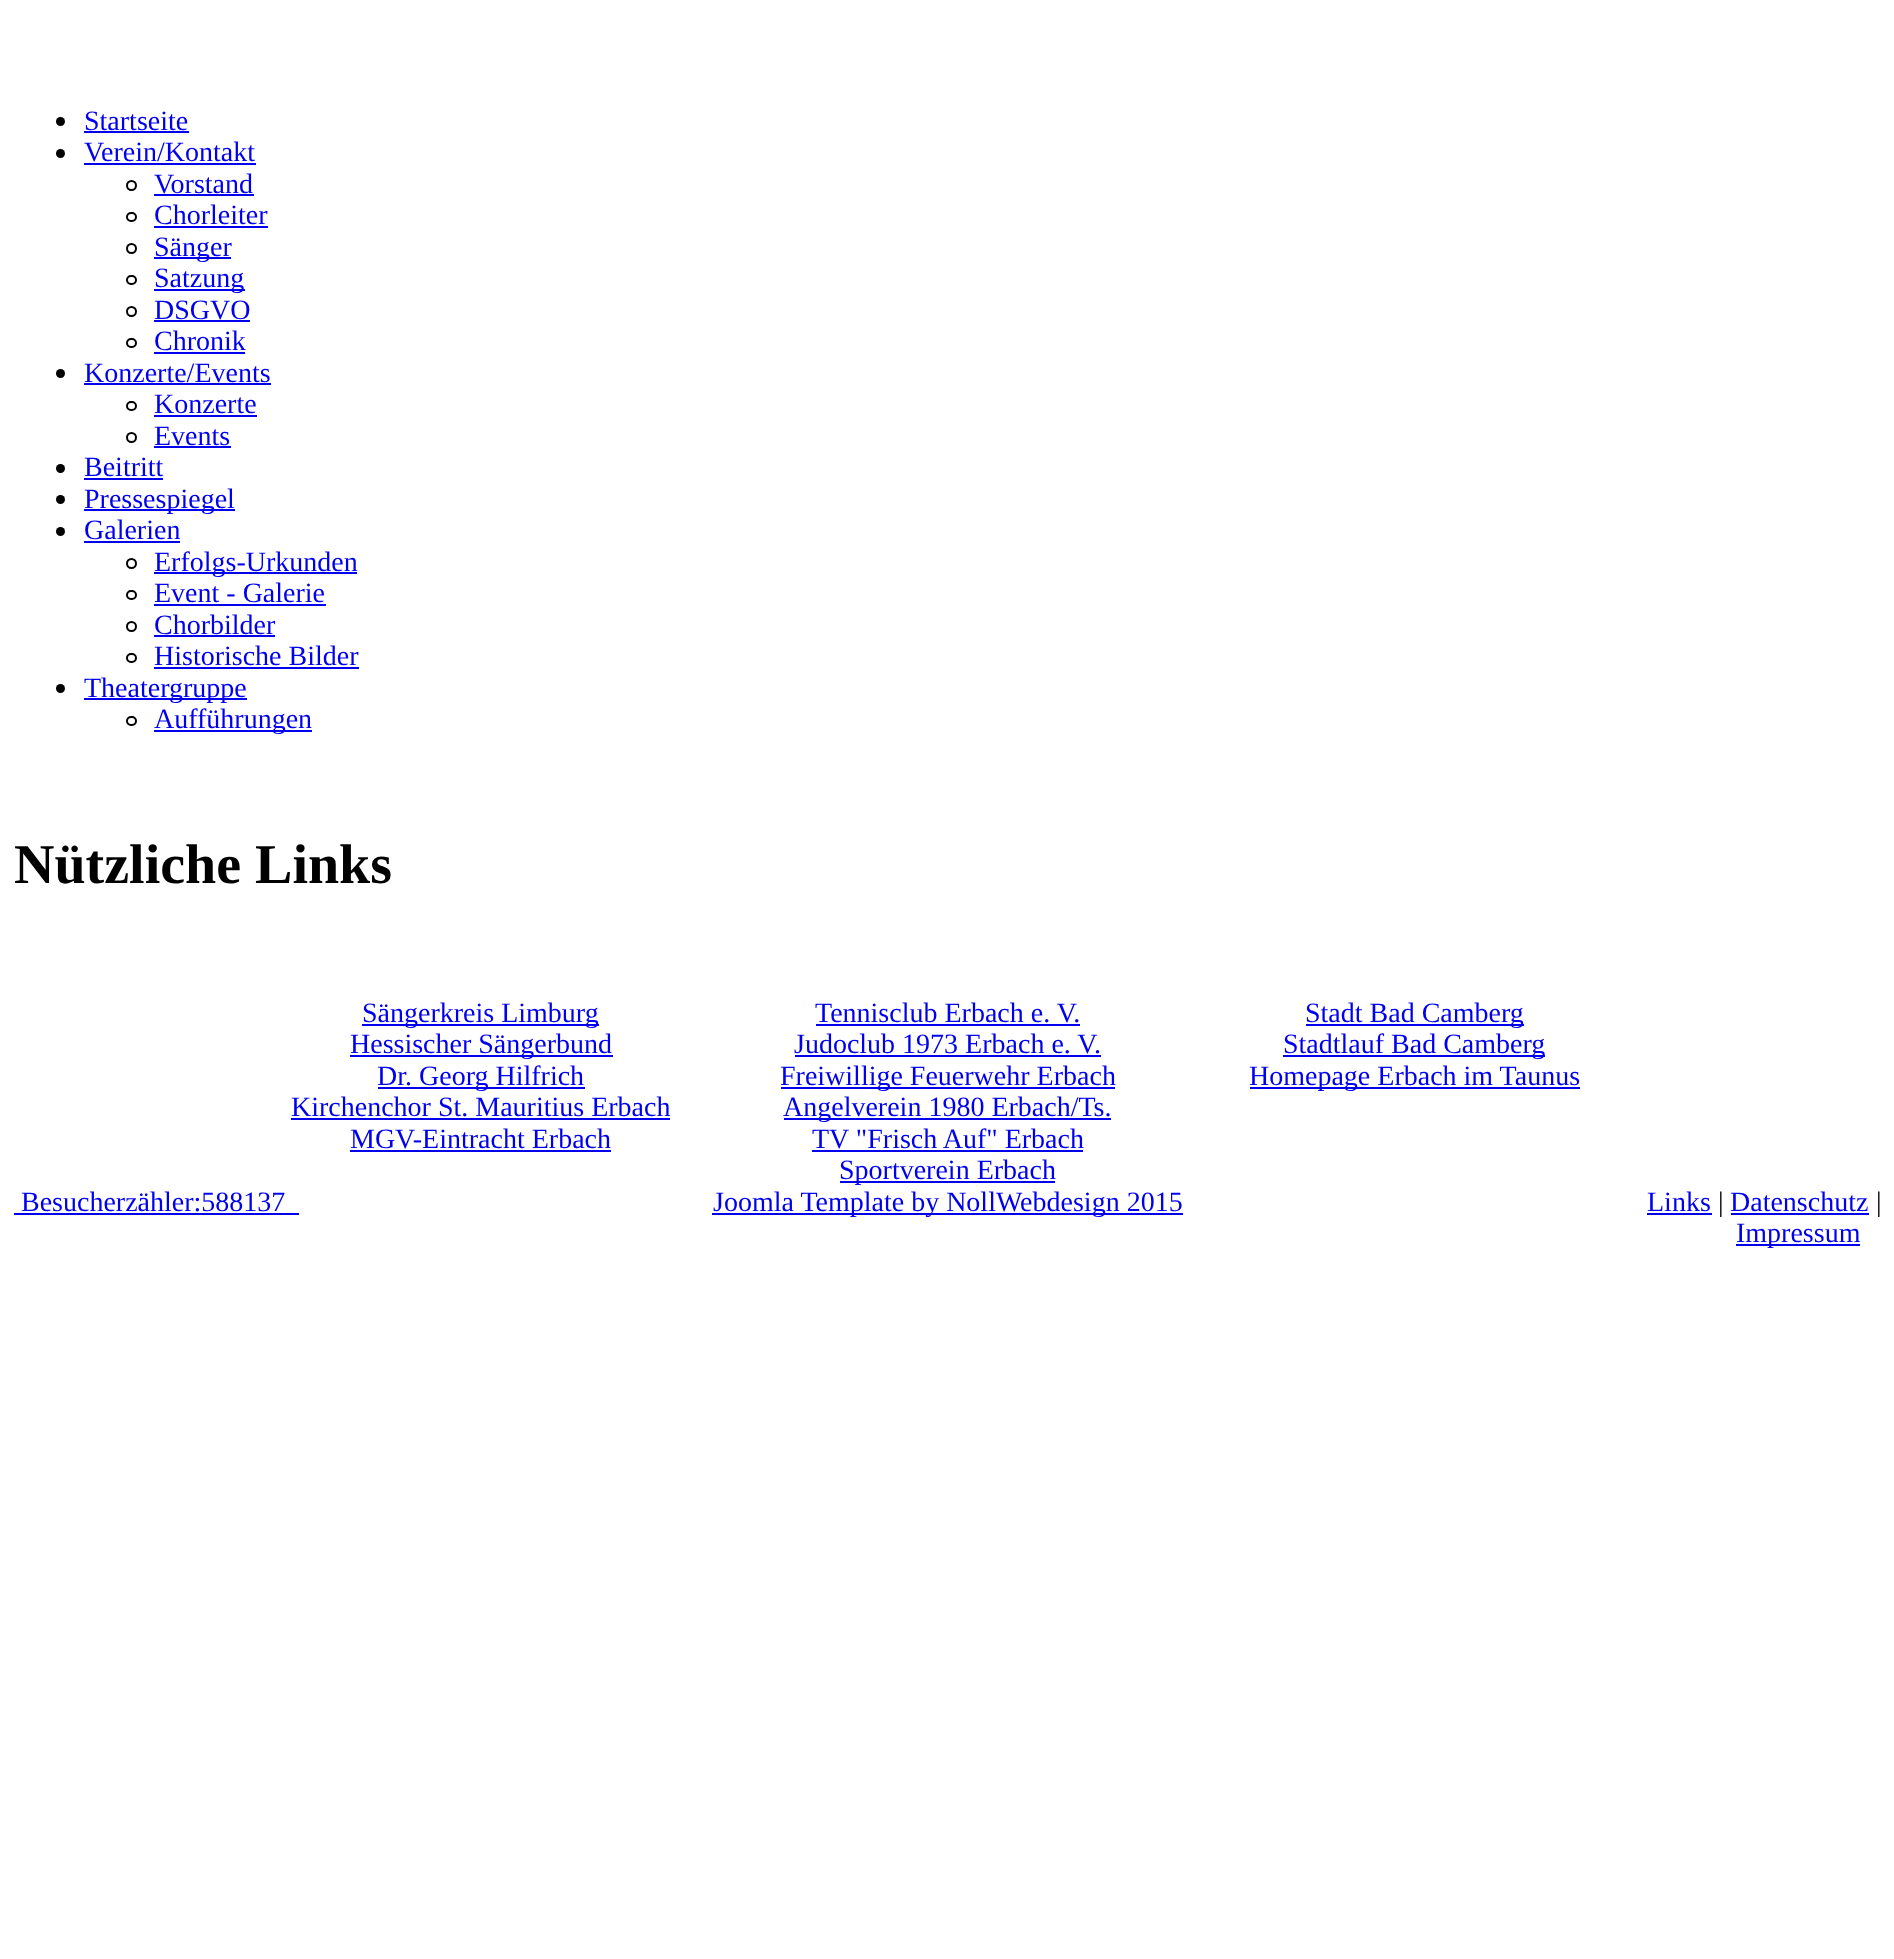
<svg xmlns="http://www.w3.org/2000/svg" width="1894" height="1959">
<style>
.a{font:28px Liberation Serif;fill:#00e}
.b{font:bold 56px Liberation Serif;fill:#000}
.c{font:28px Liberation Serif;fill:#000}
</style>
<rect width="100%" height="100%" fill="#fff"/>
<circle fill="#000" cx="60.5" cy="121.5" r="4.5"/>
<path fill="#00e" d="M84 131h105v2H84z"/>
<circle fill="#000" cx="60.5" cy="153.5" r="4.5"/>
<path fill="#00e" d="M84 163h172v2H84z"/>
<circle fill="none" stroke="#000" stroke-width="2" cx="131.5" cy="185.5" r="4.5"/>
<path fill="#00e" d="M154 194h100v2H154z"/>
<rect fill="none" stroke="#000" stroke-width="2" x="127" y="213" width="9" height="8" rx="4"/>
<path fill="#00e" d="M154 226h114v2H154z"/>
<circle fill="none" stroke="#000" stroke-width="2" cx="131.5" cy="248.5" r="4.5"/>
<path fill="#00e" d="M154 257h77v2H154z"/>
<rect fill="none" stroke="#000" stroke-width="2" x="127" y="276" width="9" height="8" rx="4"/>
<path fill="#00e" d="M154 289h91v2H154z"/>
<circle fill="none" stroke="#000" stroke-width="2" cx="131.5" cy="311.5" r="4.5"/>
<path fill="#00e" d="M154 320h96v2H154z"/>
<rect fill="none" stroke="#000" stroke-width="2" x="127" y="339" width="9" height="8" rx="4"/>
<path fill="#00e" d="M154 352h91v2H154z"/>
<circle fill="#000" cx="60.5" cy="373.5" r="4.5"/>
<path fill="#00e" d="M84 383h187v2H84z"/>
<rect fill="none" stroke="#000" stroke-width="2" x="127" y="402" width="9" height="8" rx="4"/>
<path fill="#00e" d="M154 415h103v2H154z"/>
<circle fill="none" stroke="#000" stroke-width="2" cx="131.5" cy="437.5" r="4.5"/>
<path fill="#00e" d="M154 446h77v2H154z"/>
<circle fill="#000" cx="60.5" cy="468.5" r="4.5"/>
<path fill="#00e" d="M84 478h79v2H84z"/>
<circle fill="#000" cx="60.5" cy="499.5" r="4.5"/>
<path fill="#00e" d="M84 509h151v2H84z"/>
<circle fill="#000" cx="60.5" cy="531.5" r="4.5"/>
<path fill="#00e" d="M84 541h96v2H84z"/>
<circle fill="none" stroke="#000" stroke-width="2" cx="131.5" cy="563.5" r="4.5"/>
<path fill="#00e" d="M154 572h203v2H154z"/>
<rect fill="none" stroke="#000" stroke-width="2" x="127" y="591" width="9" height="8" rx="4"/>
<path fill="#00e" d="M154 604h172v2H154z"/>
<circle fill="none" stroke="#000" stroke-width="2" cx="131.5" cy="626.5" r="4.5"/>
<path fill="#00e" d="M154 635h121v2H154z"/>
<rect fill="none" stroke="#000" stroke-width="2" x="127" y="654" width="9" height="8" rx="4"/>
<path fill="#00e" d="M154 667h205v2H154z"/>
<circle fill="#000" cx="60.5" cy="688.5" r="4.5"/>
<path fill="#00e" d="M84 698h163v2H84z"/>
<rect fill="none" stroke="#000" stroke-width="2" x="127" y="717" width="9" height="8" rx="4"/>
<path fill="#00e" d="M154 730h158v2H154z"/>
<path fill="#00e" d="M362 1024h237v2H362z"/>
<path fill="#00e" d="M350 1055h263v2H350z"/>
<path fill="#00e" d="M378 1087h207v2H378z"/>
<path fill="#00e" d="M291 1118h379v2H291z"/>
<path fill="#00e" d="M350 1150h261v2H350z"/>
<path fill="#00e" d="M816 1024h264v2H816z"/>
<path fill="#00e" d="M795 1055h306v2H795z"/>
<path fill="#00e" d="M781 1087h334v2H781z"/>
<path fill="#00e" d="M784 1118h327v2H784z"/>
<path fill="#00e" d="M812 1150h271v2H812z"/>
<path fill="#00e" d="M840 1181h215v2H840z"/>
<path fill="#00e" d="M1306 1024h218v2H1306z"/>
<path fill="#00e" d="M1283 1055h262v2H1283z"/>
<path fill="#00e" d="M1250 1087h330v2H1250z"/>
<path fill="#00e" d="M14 1213h285v2H14z"/>
<path fill="#00e" d="M712 1213h471v2H712z"/>
<path fill="#00e" d="M1647 1213h65v2H1647z"/>
<path fill="#00e" d="M1731 1213h138v2H1731z"/>
<path fill="#00e" d="M1736 1244h124v2H1736z"/>
<text class="a" x="84" y="130">Startseite</text>
<text class="a" x="84" y="161">Verein/Kontakt</text>
<text class="a" x="154" y="193">Vorstand</text>
<text class="a" x="154" y="224">Chorleiter</text>
<text class="a" x="154" y="256">Sänger</text>
<text class="a" x="154" y="287">Satzung</text>
<text class="a" x="154" y="319">DSGVO</text>
<text class="a" x="154" y="350">Chronik</text>
<text class="a" x="84" y="382">Konzerte/Events</text>
<text class="a" x="154" y="413">Konzerte</text>
<text class="a" x="154" y="445">Events</text>
<text class="a" x="84" y="476">Beitritt</text>
<text class="a" x="84" y="508">Pressespiegel</text>
<text class="a" x="84" y="539">Galerien</text>
<text class="a" x="154" y="571">Erfolgs-Urkunden</text>
<text class="a" x="154" y="602">Event - Galerie</text>
<text class="a" x="154" y="634">Chorbilder</text>
<text class="a" x="154" y="665">Historische Bilder</text>
<text class="a" x="84" y="697">Theatergruppe</text>
<text class="a" x="154" y="728">Aufführungen</text>
<text class="b" x="14" y="883">Nützliche Links</text>
<text class="a" x="362" y="1022">Sängerkreis Limburg</text>
<text class="a" x="350" y="1053">Hessischer Sängerbund</text>
<text class="a" x="377" y="1085">Dr. Georg Hilfrich</text>
<text class="a" x="291" y="1116">Kirchenchor St. Mauritius Erbach</text>
<text class="a" x="350" y="1148">MGV-Eintracht Erbach</text>
<text class="a" x="815" y="1022">Tennisclub Erbach e. V.</text>
<text class="a" x="794" y="1053">Judoclub 1973 Erbach e. V.</text>
<text class="a" x="780" y="1085">Freiwillige Feuerwehr Erbach</text>
<text class="a" x="783" y="1116">Angelverein 1980 Erbach/Ts.</text>
<text class="a" x="812" y="1148">TV "Frisch Auf" Erbach</text>
<text class="a" x="839" y="1179">Sportverein Erbach</text>
<text class="a" x="1305" y="1022">Stadt Bad Camberg</text>
<text class="a" x="1283" y="1053">Stadtlauf Bad Camberg</text>
<text class="a" x="1249" y="1085">Homepage Erbach im Taunus</text>
<text class="a" x="21" y="1211">Besucherzähler:588137</text>
<text class="a" x="713" y="1211">Joomla Template by NollWebdesign 2015</text>
<text class="a" x="1647" y="1211">Links</text>
<text class="c" x="1718" y="1211">|</text>
<text class="a" x="1730" y="1211">Datenschutz</text>
<text class="c" x="1876" y="1211">|</text>
<text class="a" x="1736" y="1242">Impressum</text>
</svg>
